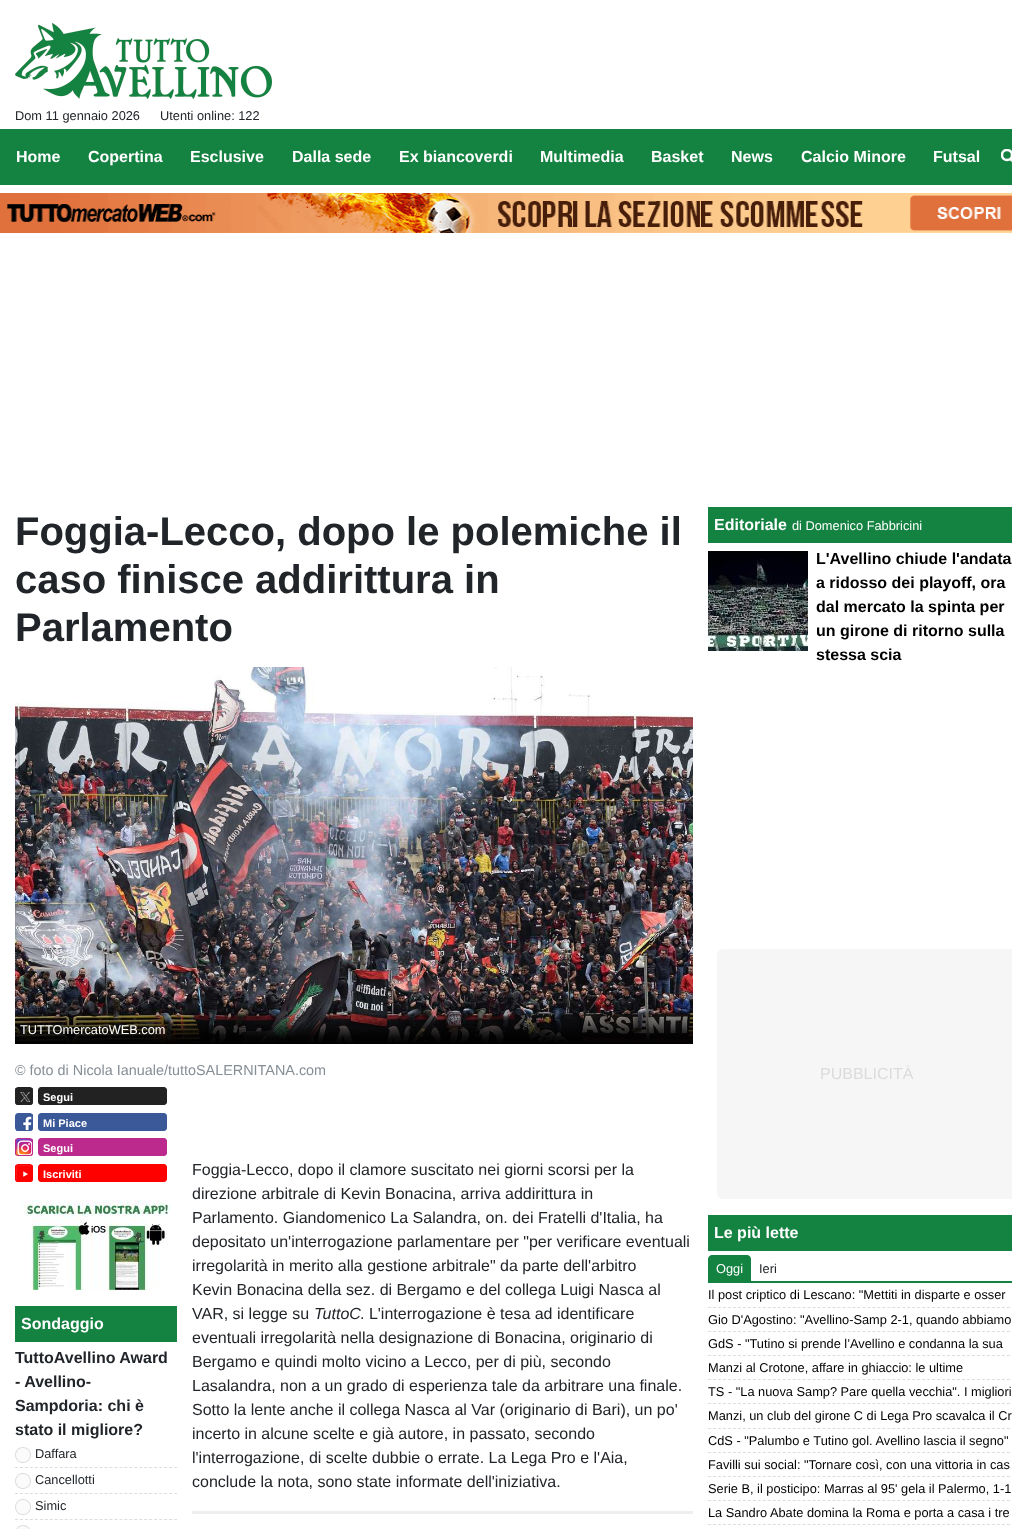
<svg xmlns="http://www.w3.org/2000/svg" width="1012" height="1529">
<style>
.a{font:12.8px Liberation Sans;fill:#212529}
.b{font:bold 16px Liberation Sans;fill:#fff}
.c{font:bold 40px Liberation Sans;fill:#212529}
.d{font:12.8px Liberation Sans;fill:#fff}
.e{font:14.4px Liberation Sans;fill:#868e96}
.f{font:bold 11px Liberation Sans;fill:#fff}
.g{font:bold 16px Liberation Sans;fill:#212529}
.h{font:16px Liberation Sans;fill:#212529}
.i{font:italic 16px Liberation Sans;fill:#212529}
.j{font:bold 16px Liberation Sans;fill:#000}
.k{font:16px Liberation Sans;fill:#dbdbdb}
.l{font:12.8px Liberation Sans;fill:#000}
</style>
<defs>
<clipPath id="clip1"><path d="M1001 149h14v16H1001z"/></clipPath>
</defs>
<rect width="100%" height="100%" fill="#fff"/>
<image href="1.png" x="15" y="23" width="257" height="76"/>
<path fill="#148240" d="M0 129h1012v56H0z"/>
<path fill="none" stroke="#fff" stroke-width="2.5" d="M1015 163.5l-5-5"/>
<g clip-path="url(#clip1)">
<circle fill="none" stroke="#fff" stroke-width="2.5" cx="1007" cy="155" r="5"/>
</g>
<image href="2.png" x="0" y="193" width="1012" height="40"/>
<image href="3.png" x="15" y="667" width="678" height="377"/>
<image href="4.png" x="15" y="1088" width="18" height="17"/>
<rect fill="none" stroke="#222" x="15.5" y="1087.5" width="17" height="17" rx="2.5"/>
<rect fill="#222" stroke="#222" x="38.5" y="1087.5" width="128" height="17" rx="2.5"/>
<image href="5.png" x="16" y="1114" width="17" height="17"/>
<rect fill="none" stroke="#3b5998" x="15.5" y="1113.5" width="17" height="17" rx="2.5"/>
<rect fill="#3b5998" stroke="#3b5998" x="38.5" y="1113.5" width="128" height="17" rx="2.5"/>
<image href="6.png" x="15" y="1139" width="18" height="17"/>
<rect fill="none" stroke="#bc2a8d" x="15.5" y="1138.5" width="17" height="17" rx="2.5"/>
<rect fill="#bc2a8d" stroke="#bc2a8d" x="38.5" y="1138.5" width="128" height="17" rx="2.5"/>
<image href="7.png" x="15" y="1165" width="18" height="17"/>
<rect fill="none" stroke="#f00" x="15.5" y="1164.5" width="17" height="17" rx="2.5"/>
<rect fill="#f00" stroke="#f00" x="38.5" y="1164.5" width="128" height="17" rx="2.5"/>
<image href="8.png" x="21" y="1200" width="150" height="90"/>
<path fill="#148240" d="M15 1306h162v36H15z"/>
<path fill="none" stroke="#ddd" stroke-dasharray="3 1.97" d="M15 1467.5h162"/>
<image href="9.png" x="15" y="1447" width="16" height="16"/>
<path fill="none" stroke="#ddd" stroke-dasharray="3 1.97" d="M15 1493.5h162"/>
<image href="9.png" x="15" y="1473" width="16" height="16"/>
<path fill="none" stroke="#ddd" stroke-dasharray="3 1.97" d="M15 1519.5h162"/>
<image href="9.png" x="15" y="1499" width="16" height="16"/>
<image href="10.png" x="16" y="1525" width="14" height="4"/>
<path fill="#eee" d="M192 1511h501v3H192z"/>
<path fill="#148240" d="M708 507h304v36H708z"/>
<image href="11.png" x="708" y="551" width="100" height="100"/>
<rect fill="#f6f6f6" x="717" y="949" width="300" height="250" rx="6"/>
<path fill="#148240" d="M708 1215h304v36H708z"/>
<path fill="#148240" d="M708 1281h304v2H708z"/>
<path fill="#148240" d="M712 1255h35c2 0 4 2 4 4v23h-43v-23c0-2 2-4 4-4z"/>
<path fill="none" stroke="#ddd" stroke-dasharray="3 1.98" d="M708 1307.5h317"/>
<path fill="none" stroke="#ddd" stroke-dasharray="3 1.98" d="M708 1331.5h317"/>
<path fill="none" stroke="#ddd" stroke-dasharray="3 1.98" d="M708 1355.5h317"/>
<path fill="none" stroke="#ddd" stroke-dasharray="3 1.98" d="M708 1379.5h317"/>
<path fill="none" stroke="#ddd" stroke-dasharray="3 1.98" d="M708 1403.5h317"/>
<path fill="none" stroke="#ddd" stroke-dasharray="3 1.98" d="M708 1428.5h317"/>
<path fill="none" stroke="#ddd" stroke-dasharray="3 1.98" d="M708 1452.5h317"/>
<path fill="none" stroke="#ddd" stroke-dasharray="3 1.98" d="M708 1476.5h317"/>
<path fill="none" stroke="#ddd" stroke-dasharray="3 1.98" d="M708 1500.5h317"/>
<path fill="none" stroke="#ddd" stroke-dasharray="3 1.98" d="M708 1524.5h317"/>
<text class="a" x="15" y="120">Dom 11 gennaio 2026</text>
<text class="a" x="160" y="120">Utenti online: 122</text>
<text class="b" x="16" y="162">Home</text>
<text class="b" x="88" y="162">Copertina</text>
<text class="b" x="190" y="162">Esclusive</text>
<text class="b" x="292" y="162">Dalla sede</text>
<text class="b" x="399" y="162">Ex biancoverdi</text>
<text class="b" x="540" y="162">Multimedia</text>
<text class="b" x="651" y="162">Basket</text>
<text class="b" x="731" y="162">News</text>
<text class="b" x="801" y="162">Calcio Minore</text>
<text class="b" x="933" y="162">Futsal</text>
<text class="c" x="15" y="545">Foggia-Lecco, dopo le polemiche il</text>
<text class="c" x="15" y="593">caso finisce addirittura in</text>
<text class="c" x="15" y="641">Parlamento</text>
<text class="d" x="20" y="1034">TUTTOmercatoWEB.com</text>
<text class="e" x="15" y="1075">© foto di Nicola Ianuale/tuttoSALERNITANA.com</text>
<text class="f" x="43" y="1101">Segui</text>
<text class="f" x="43" y="1127">Mi Piace</text>
<text class="f" x="43" y="1152">Segui</text>
<text class="f" x="43" y="1178">Iscriviti</text>
<text class="b" x="21" y="1329">Sondaggio</text>
<text class="g" x="15" y="1363">TuttoAvellino Award</text>
<text class="g" x="15" y="1387">- Avellino-</text>
<text class="g" x="15" y="1411">Sampdoria: chi è</text>
<text class="g" x="15" y="1435">stato il migliore?</text>
<text class="a" x="35" y="1458">Daffara</text>
<text class="a" x="35" y="1484">Cancellotti</text>
<text class="a" x="35" y="1510">Simic</text>
<text class="h" x="192" y="1175">Foggia-Lecco, dopo il clamore suscitato nei giorni scorsi per la</text>
<text class="h" x="192" y="1199">direzione arbitrale di Kevin Bonacina, arriva addirittura in</text>
<text class="h" x="192" y="1223">Parlamento. Giandomenico La Salandra, on. dei Fratelli d'Italia, ha</text>
<text class="h" x="192" y="1247">depositato un'interrogazione parlamentare per "per verificare eventuali</text>
<text class="h" x="192" y="1271">irregolarità in merito alla gestione arbitrale" da parte dell'arbitro</text>
<text class="h" x="192" y="1295">Kevin Bonacina della sez. di Bergamo e del collega Luigi Nasca al</text>
<text class="h" x="192" y="1319">VAR, si legge su</text>
<text class="i" x="314" y="1319">TuttoC</text>
<text class="h" x="360" y="1319">. L'interrogazione è tesa ad identificare</text>
<text class="h" x="192" y="1343">eventuali irregolarità nella designazione di Bonacina, originario di</text>
<text class="h" x="192" y="1367">Bergamo e quindi molto vicino a Lecco, per di più, secondo</text>
<text class="h" x="192" y="1391">Lasalandra, non a un grado di esperienza tale da arbitrare una finale.</text>
<text class="h" x="192" y="1415">Sotto la lente anche il collega Nasca al Var (originario di Bari), un po'</text>
<text class="h" x="192" y="1439">incerto in alcune scelte e già autore, in passato, secondo</text>
<text class="h" x="192" y="1463">l'interrogazione, di scelte dubbie o errate. La Lega Pro e l'Aia,</text>
<text class="h" x="192" y="1487">conclude la nota, sono state informate dell'iniziativa.</text>
<text class="b" x="714" y="530">Editoriale</text>
<text class="d" x="792" y="530">di Domenico Fabbricini</text>
<text class="j" x="816" y="564">L'Avellino chiude l'andata</text>
<text class="j" x="816" y="588">a ridosso dei playoff, ora</text>
<text class="j" x="816" y="612">dal mercato la spinta per</text>
<text class="j" x="816" y="636">un girone di ritorno sulla</text>
<text class="j" x="816" y="660">stessa scia</text>
<text class="k" x="820" y="1079">PUBBLICITÀ</text>
<text class="b" x="714" y="1238">Le più lette</text>
<text class="d" x="716" y="1273">Oggi</text>
<text class="a" x="759" y="1273">Ieri</text>
<text class="l" x="708" y="1299">Il post criptico di Lescano: "Mettiti in disparte e osser</text>
<text class="l" x="708" y="1324">Gio D'Agostino: "Avellino-Samp 2-1, quando abbiamo</text>
<text class="l" x="708" y="1348">GdS - "Tutino si prende l’Avellino e condanna la sua</text>
<text class="l" x="708" y="1372">Manzi al Crotone, affare in ghiaccio: le ultime</text>
<text class="l" x="708" y="1396">TS - "La nuova Samp? Pare quella vecchia". I migliori</text>
<text class="l" x="708" y="1420">Manzi, un club del girone C di Lega Pro scavalca il Cr</text>
<text class="l" x="708" y="1445">CdS - "Palumbo e Tutino gol. Avellino lascia il segno"</text>
<text class="l" x="708" y="1469">Favilli sui social: "Tornare così, con una vittoria in cas</text>
<text class="l" x="708" y="1493">Serie B, il posticipo: Marras al 95' gela il Palermo, 1-1</text>
<text class="l" x="708" y="1517">La Sandro Abate domina la Roma e porta a casa i tre</text>
</svg>
